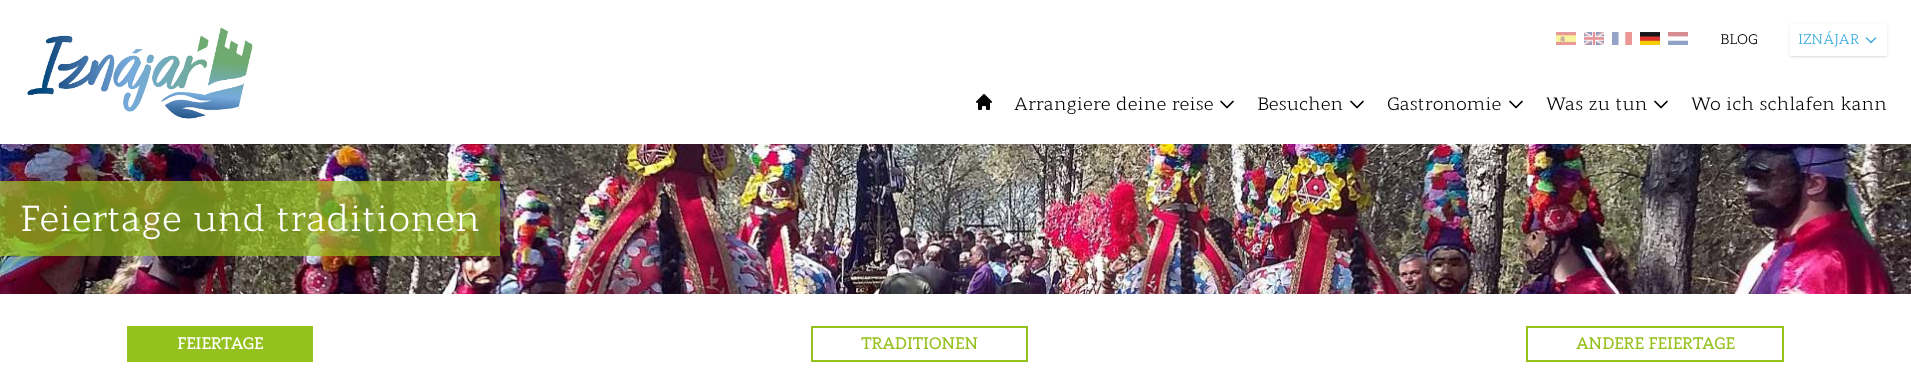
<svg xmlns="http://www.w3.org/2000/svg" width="1911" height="374">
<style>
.a{font:14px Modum;fill:#000}
.b{font:14px Modum;fill:#36a9e0}
.c{font:18px Modum;fill:#000}
.d{font:36px Modum;fill:#fff}
.e{font:bold 16px Modum;fill:#fff}
.f{font:bold 16px Modum;fill:#95c11e}
</style>
<defs>
<clipPath id="clip1"><path d="M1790 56h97v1H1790z"/></clipPath>
<clipPath id="clip2"><path d="M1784 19h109v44h-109zm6 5h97v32h-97z" clip-rule="evenodd"/></clipPath>
</defs>
<rect width="100%" height="100%" fill="#fff"/>
<image href="1.png" x="26" y="27" width="227" height="92"/>
<image href="2.png" x="1556" y="32" width="20" height="13"/>
<image href="3.png" x="1584" y="32" width="20" height="13"/>
<image href="4.png" x="1612" y="32" width="20" height="13"/>
<image href="5.png" x="1640" y="32" width="20" height="13"/>
<image href="6.png" x="1668" y="32" width="20" height="13"/>
<g clip-path="url(#clip1)">
<path fill="#0000000f" filter="blur(1px)" d="M1790 25h97v32H1790z"/>
</g>
<g clip-path="url(#clip2)">
<path fill="#0000001a" filter="blur(1.5px)" d="M1790 25h97v32H1790z"/>
</g>
<path fill="none" stroke="#36a9e0" stroke-width="1.3" stroke-linecap="round" stroke-linejoin="round" d="M1875.5 38l-4.5 4.5l-4.5-4.5"/>
<image href="7.png" x="976" y="94" width="16" height="16"/>
<path fill="none" stroke="#000" stroke-width="1.7" stroke-linecap="round" stroke-linejoin="round" d="M1233 101.5l-6 6l-6-6"/>
<path fill="none" stroke="#000" stroke-width="1.7" stroke-linecap="round" stroke-linejoin="round" d="M1363 101.5l-6 6l-6-6"/>
<path fill="none" stroke="#000" stroke-width="1.7" stroke-linecap="round" stroke-linejoin="round" d="M1522 101.5l-6 6l-6-6"/>
<path fill="none" stroke="#000" stroke-width="1.7" stroke-linecap="round" stroke-linejoin="round" d="M1667 101.5l-6 6l-6-6"/>
<image href="8.png" x="0" y="144" width="1911" height="150"/>
<path fill="#95c11eb3" d="M0 181h500v75H0z"/>
<path fill="#95c11e" d="M127 326h186v36H127z"/>
<path fill="none" stroke="#95c11e" stroke-width="2" d="M812 327h215v34H812z"/>
<path fill="none" stroke="#95c11e" stroke-width="2" d="M1527 327h256v34H1527z"/>
<text class="a" x="1720" y="44">BLOG</text>
<text class="b" x="1798" y="44">IZNÁJAR</text>
<text class="c" x="1014" y="110">Arrangiere deine reise</text>
<text class="c" x="1257" y="110">Besuchen</text>
<text class="c" x="1387" y="110">Gastronomie</text>
<text class="c" x="1546" y="110">Was zu tun</text>
<text class="c" x="1691" y="110">Wo ich schlafen kann</text>
<text class="d" x="20" y="231">Feiertage und traditionen</text>
<text class="e" x="177" y="349">FEIERTAGE</text>
<text class="f" x="861" y="349">TRADITIONEN</text>
<text class="f" x="1576" y="349">ANDERE FEIERTAGE</text>
</svg>
